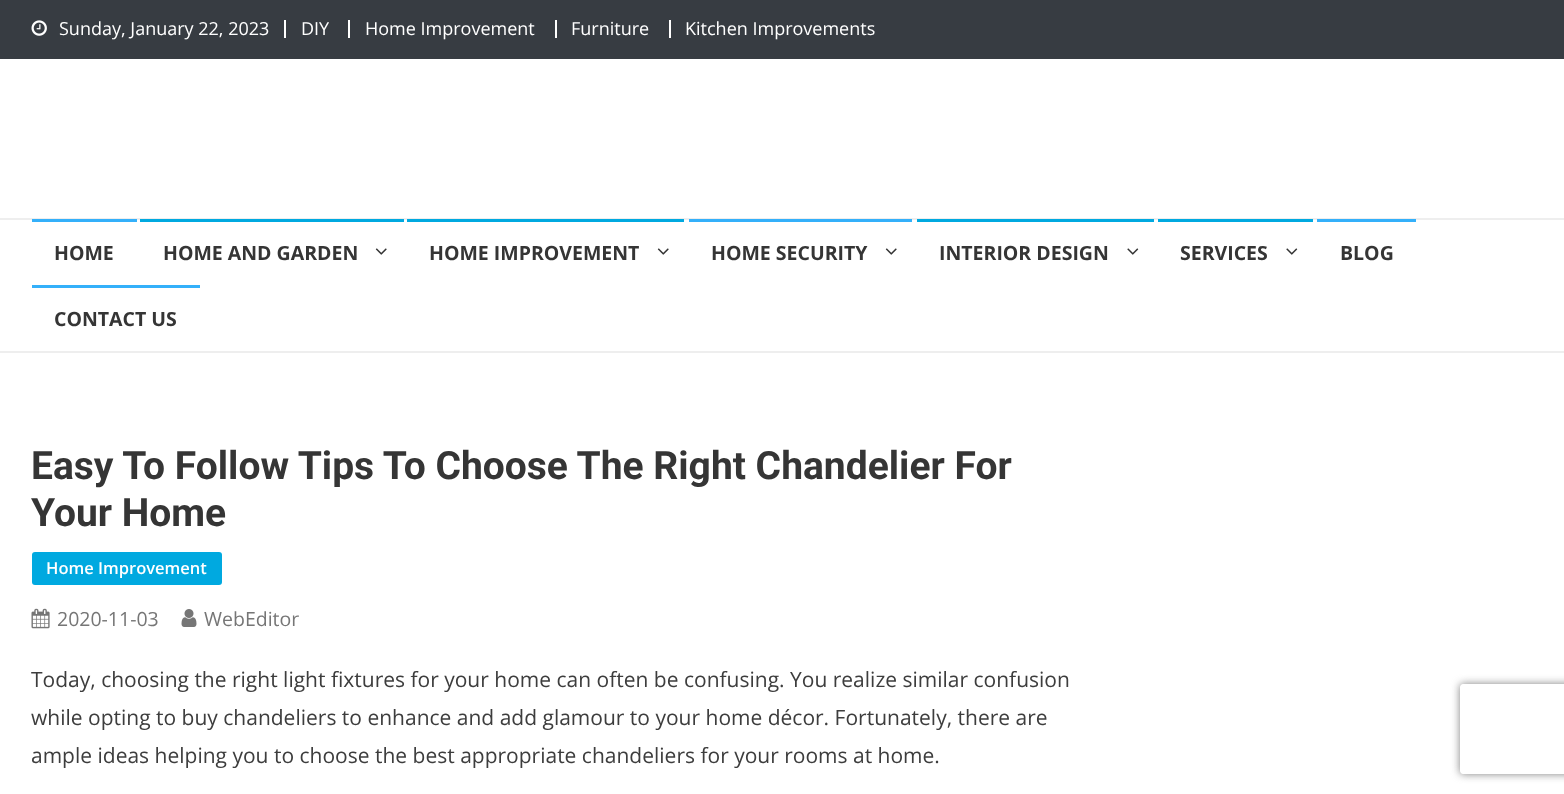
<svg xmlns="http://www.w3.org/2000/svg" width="1564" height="794">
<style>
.a{font:18px Open Sans;fill:#fff}
.b{font:bold 19.5px Open Sans;fill:#353535}
.c{font:bold 39px Roboto;fill:#353535}
.d{font:600 16.5px Open Sans;fill:#fff}
.e{font:19.5px Open Sans;fill:#767676}
.f{font:21px Open Sans;fill:#3d3d3d}
</style>
<defs>
<clipPath id="clip1"><path d="M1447 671h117v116h-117zm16 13h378c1.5 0 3 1.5 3 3v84c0 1.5-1.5 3-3 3h-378c-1.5 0-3-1.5-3-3v-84c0-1.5 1.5-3 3-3z" clip-rule="evenodd"/></clipPath>
</defs>
<rect width="100%" height="100%" fill="#fff"/>
<path fill="#373c42" d="M0 0h1564v59H0z"/>
<image href="1.png" x="31" y="20" width="16" height="16"/>
<path fill="#fff" d="M284 20h2v18H284z"/>
<path fill="#fff" d="M348 20h2v18H348z"/>
<path fill="#fff" d="M555 20h2v18H555z"/>
<path fill="#fff" d="M669 20h2v18H669z"/>
<path fill="#eee" d="M0 218h1564v2H0z"/>
<path fill="#eee" d="M0 351h1564v2H0z"/>
<path fill="#34b0fa" d="M32 219h105v3H32z"/>
<path fill="#00a9e0" d="M140 219h264v3H140z"/>
<image href="2.png" x="375" y="248" width="12" height="7"/>
<path fill="#00a9e0" d="M407 219h277v3H407z"/>
<image href="2.png" x="657" y="248" width="12" height="7"/>
<path fill="#34b0fa" d="M689 219h223v3H689z"/>
<image href="2.png" x="885" y="248" width="12" height="7"/>
<path fill="#00a9e0" d="M917 219h237v3H917z"/>
<image href="3.png" x="1127" y="248" width="12" height="7"/>
<path fill="#00a9e0" d="M1158 219h155v3H1158z"/>
<image href="3.png" x="1286" y="248" width="12" height="7"/>
<path fill="#34b0fa" d="M1317 219h99v3H1317z"/>
<path fill="#34b0fa" d="M32 285h168v3H32z"/>
<rect fill="#00a9e0" x="32" y="552" width="190" height="33" rx="3"/>
<image href="4.png" x="31" y="608" width="19" height="21"/>
<image href="5.png" x="181" y="609" width="16" height="18"/>
<g clip-path="url(#clip1)">
<rect fill="#808080" filter="blur(4px)" x="1460" y="684" width="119" height="90" rx="3"/>
</g>
<text class="a" x="59" y="35">Sunday, January 22, 2023</text>
<text class="a" x="301" y="35">DIY</text>
<text class="a" x="365" y="35">Home Improvement</text>
<text class="a" x="571" y="35">Furniture</text>
<text class="a" x="685" y="35">Kitchen Improvements</text>
<text class="b" x="54" y="260">HOME</text>
<text class="b" x="163" y="260">HOME AND GARDEN</text>
<text class="b" x="429" y="260">HOME IMPROVEMENT</text>
<text class="b" x="711" y="260">HOME SECURITY</text>
<text class="b" x="939" y="260">INTERIOR DESIGN</text>
<text class="b" x="1180" y="260">SERVICES</text>
<text class="b" x="1340" y="260">BLOG</text>
<text class="b" x="54" y="326">CONTACT US</text>
<text class="c" x="31" y="479">Easy To Follow Tips To Choose The Right Chandelier For</text>
<text class="c" x="31" y="526">Your Home</text>
<text class="d" x="46" y="574">Home Improvement</text>
<text class="e" x="57" y="626">2020-11-03</text>
<text class="e" x="204" y="626">WebEditor</text>
<text class="f" x="31" y="687">Today, choosing the right light fixtures for your home can often be confusing. You realize similar confusion</text>
<text class="f" x="31" y="725">while opting to buy chandeliers to enhance and add glamour to your home décor. Fortunately, there are</text>
<text class="f" x="31" y="763">ample ideas helping you to choose the best appropriate chandeliers for your rooms at home.</text>
</svg>
